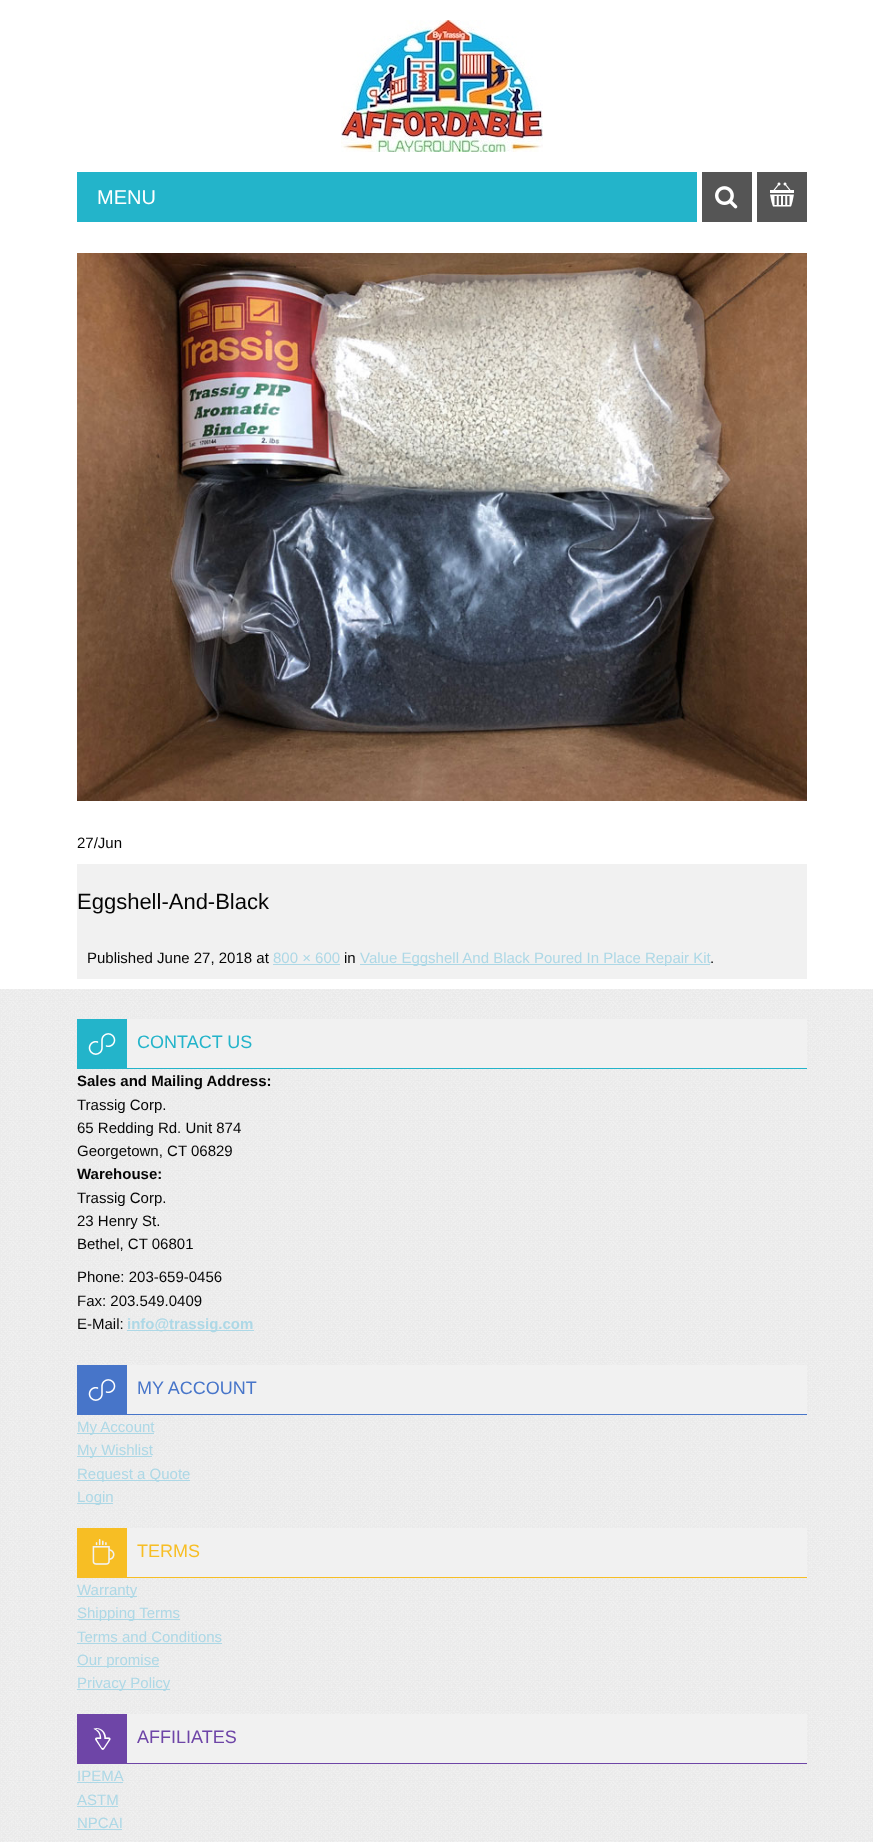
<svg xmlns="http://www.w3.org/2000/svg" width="873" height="1842">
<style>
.a{font:20px Liberation Sans;fill:#fff}
.b{font:15px Liberation Sans;fill:#050505}
.c{font:22px Liberation Sans;fill:#050505}
.d{font:15px Liberation Sans;fill:#add8e6}
.e{font:18px Liberation Sans;fill:#23b4ca}
.f{font:bold 15px Liberation Sans;fill:#050505}
.g{font:bold 15px Liberation Sans;fill:#add8e6}
.h{font:18px Liberation Sans;fill:#4775c9}
.i{font:18px Liberation Sans;fill:#f7be24}
.j{font:18px Liberation Sans;fill:#6e45a7}
</style>
<rect width="100%" height="100%" fill="#fff"/>
<image href="1.png" x="341" y="20" width="202" height="132"/>
<path fill="#23b4ca" d="M77 172h620v50H77z"/>
<path fill="#555" d="M702 172h50v50H702z"/>
<image href="2.png" x="715" y="186" width="23" height="23"/>
<path fill="#555" d="M757 172h50v50H757z"/>
<image href="3.png" x="770" y="182" width="24" height="25"/>
<image href="4.png" x="77" y="253" width="730" height="548"/>
<path fill="#f1f1f1" d="M77 864h730v115H77z"/>
<path fill="#add8e6" d="M273 964h67v1H273z"/>
<path fill="#add8e6" d="M360 964h350v1H360z"/>
<image href="5.png" x="0" y="989" width="873" height="853"/>
<path fill="#f1f1f1" d="M127 1019h680v49H127z"/>
<path fill="#23b4ca" d="M77 1019h50v50H77z"/>
<image href="6.png" x="88" y="1033" width="28" height="22"/>
<path fill="#23b4ca" d="M127 1068h680v1H127z"/>
<path fill="#add8e6" d="M127 1330h127v1H127z"/>
<path fill="#f1f1f1" d="M127 1365h680v49H127z"/>
<path fill="#4775c9" d="M77 1365h50v50H77z"/>
<image href="7.png" x="88" y="1379" width="28" height="22"/>
<path fill="#4775c9" d="M127 1414h680v1H127z"/>
<path fill="#add8e6" d="M77 1433h77v1H77z"/>
<path fill="#add8e6" d="M77 1456h75v1H77z"/>
<path fill="#add8e6" d="M77 1480h113v1H77z"/>
<path fill="#add8e6" d="M77 1503h36v1H77z"/>
<path fill="#f1f1f1" d="M127 1528h680v49H127z"/>
<path fill="#f7be24" d="M77 1528h50v50H77z"/>
<image href="8.png" x="92" y="1539" width="23" height="26"/>
<path fill="#f7be24" d="M127 1577h680v1H127z"/>
<path fill="#add8e6" d="M77 1596h60v1H77z"/>
<path fill="#add8e6" d="M77 1619h103v1H77z"/>
<path fill="#add8e6" d="M77 1643h145v1H77z"/>
<path fill="#add8e6" d="M77 1666h82v1H77z"/>
<path fill="#add8e6" d="M77 1689h93v1H77z"/>
<path fill="#f1f1f1" d="M127 1714h680v49H127z"/>
<path fill="#6e45a7" d="M77 1714h50v50H77z"/>
<image href="9.png" x="93" y="1728" width="18" height="22"/>
<path fill="#6e45a7" d="M127 1763h680v1H127z"/>
<path fill="#add8e6" d="M77 1782h46v1H77z"/>
<path fill="#add8e6" d="M77 1806h41v1H77z"/>
<path fill="#add8e6" d="M77 1829h45v1H77z"/>
<text class="a" x="97" y="204">MENU</text>
<text class="b" x="77" y="848">27/Jun</text>
<text class="c" x="77" y="909">Eggshell-And-Black</text>
<text class="b" x="87" y="963">Published June 27, 2018 at</text>
<text class="d" x="273" y="963">800 × 600</text>
<text class="b" x="344" y="963">in</text>
<text class="d" x="360" y="963">Value Eggshell And Black Poured In Place Repair Kit</text>
<text class="b" x="710" y="963">.</text>
<text class="e" x="137" y="1048">CONTACT US</text>
<text class="f" x="77" y="1086">Sales and Mailing Address:</text>
<text class="b" x="77" y="1110">Trassig Corp.</text>
<text class="b" x="77" y="1133">65 Redding Rd. Unit 874</text>
<text class="b" x="77" y="1156">Georgetown, CT 06829</text>
<text class="f" x="77" y="1179">Warehouse:</text>
<text class="b" x="77" y="1203">Trassig Corp.</text>
<text class="b" x="77" y="1226">23 Henry St.</text>
<text class="b" x="77" y="1249">Bethel, CT 06801</text>
<text class="b" x="77" y="1282">Phone: 203-659-0456</text>
<text class="b" x="77" y="1306">Fax: 203.549.0409</text>
<text class="b" x="77" y="1329">E-Mail:</text>
<text class="g" x="127" y="1329">info@trassig.com</text>
<text class="h" x="137" y="1394">MY ACCOUNT</text>
<text class="d" x="77" y="1432">My Account</text>
<text class="d" x="77" y="1455">My Wishlist</text>
<text class="d" x="77" y="1479">Request a Quote</text>
<text class="d" x="77" y="1502">Login</text>
<text class="i" x="137" y="1557">TERMS</text>
<text class="d" x="77" y="1595">Warranty</text>
<text class="d" x="77" y="1618">Shipping Terms</text>
<text class="d" x="77" y="1642">Terms and Conditions</text>
<text class="d" x="77" y="1665">Our promise</text>
<text class="d" x="77" y="1688">Privacy Policy</text>
<text class="j" x="137" y="1743">AFFILIATES</text>
<text class="d" x="77" y="1781">IPEMA</text>
<text class="d" x="77" y="1805">ASTM</text>
<text class="d" x="77" y="1828">NPCAI</text>
</svg>
